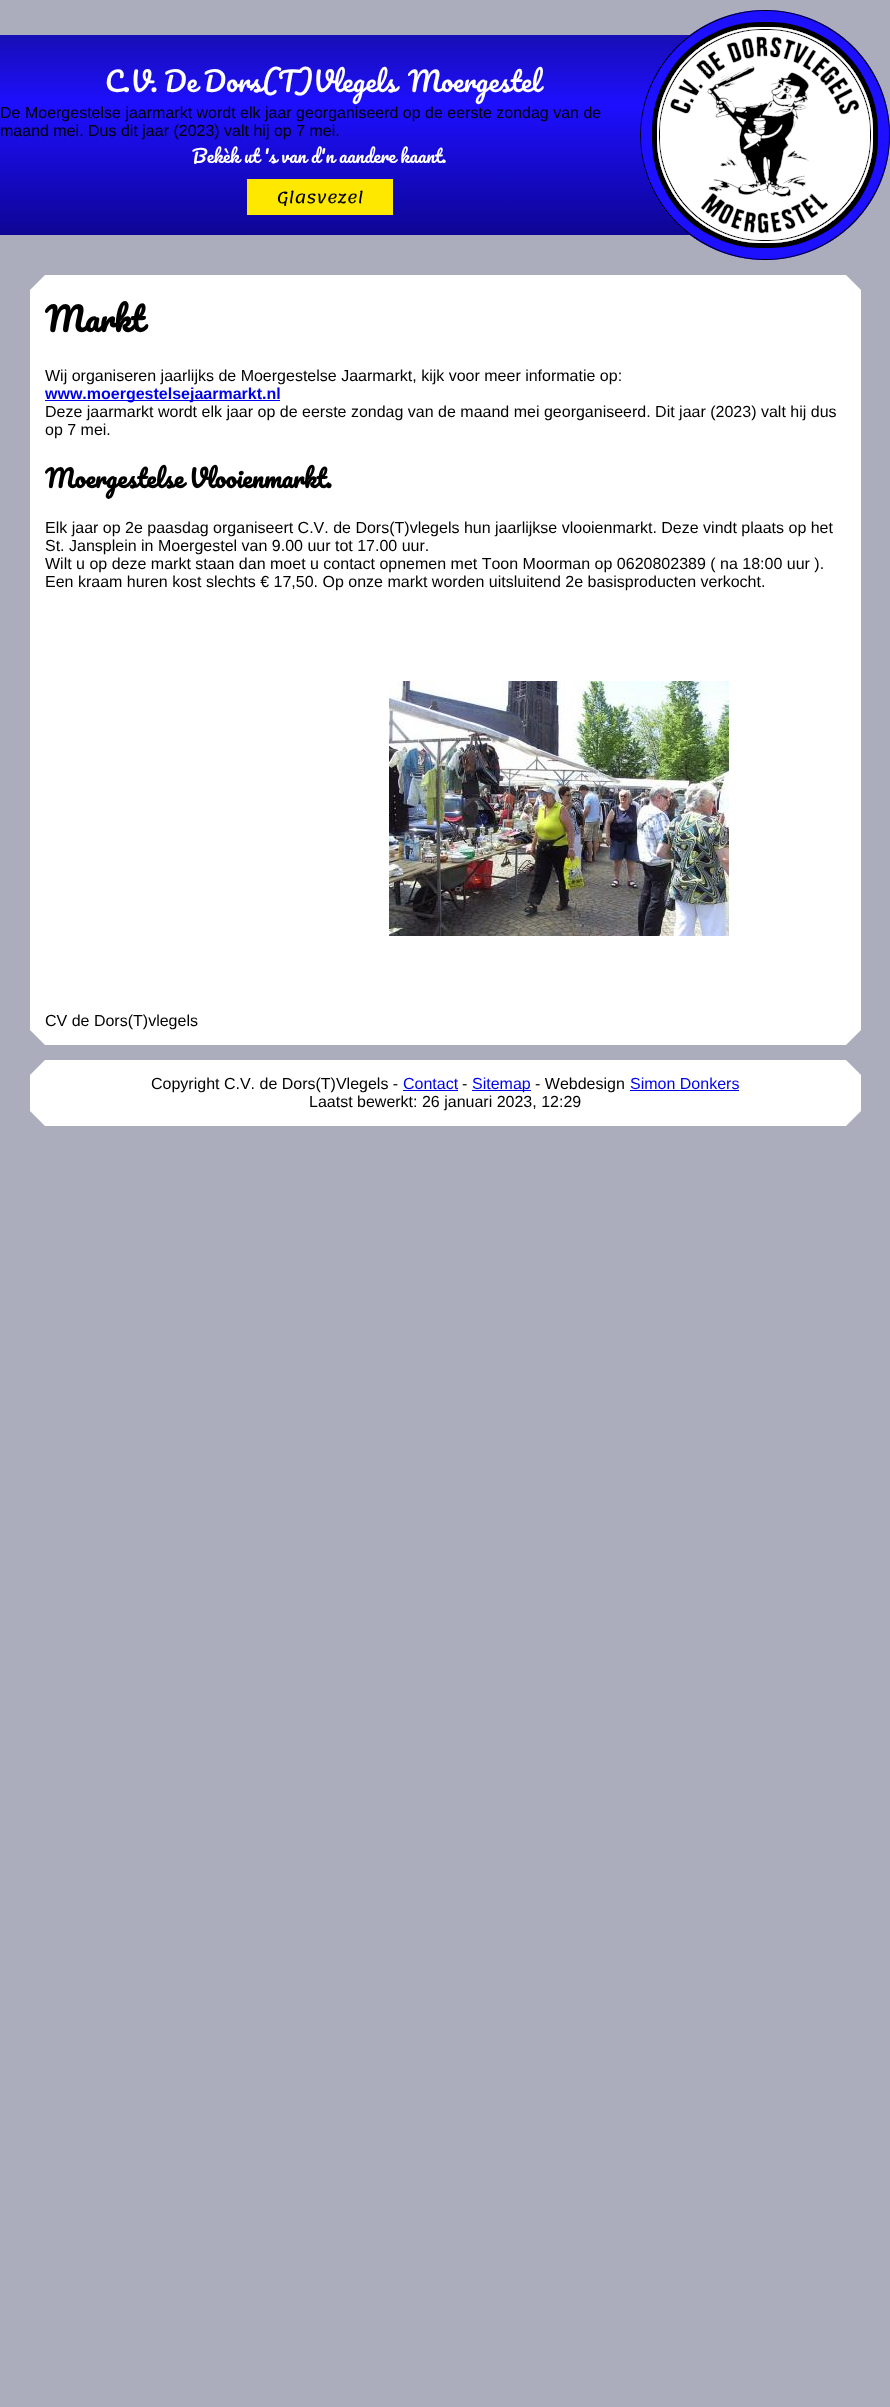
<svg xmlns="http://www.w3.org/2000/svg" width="890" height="2407">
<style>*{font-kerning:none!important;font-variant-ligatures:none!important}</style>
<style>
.a{font:26.75px Pacifico;fill:#fff}
.b{font:16px Liberation Sans;fill:#000}
.c{font:17.75px Pacifico;fill:#fff}
.d{font:16px Lemonada;fill:#000}
.e{font:bold 32px Pacifico;fill:#000}
.f{font:bold 16px Liberation Sans;fill:#00e}
.g{font:bold 24px Pacifico;fill:#000}
.h{font:16px Liberation Sans;fill:#00e}
</style>
<defs>
<linearGradient id="g1" gradientUnits="userSpaceOnUse" x1="395" y1="35" x2="395" y2="235"><stop offset="0" stop-color="#180eb5"/><stop offset="0.35" stop-color="#1d0fff"/><stop offset="1" stop-color="#0e0594"/></linearGradient>
</defs>
<rect width="100%" height="100%" fill="#acadbc"/>
<path fill="url(#g1)" d="M0 35h690v200H0z"/>
<path fill="#ffe800" d="M247 179h146v36H247z"/>
<image href="1.png" x="640" y="10" width="250" height="250"/>
<path fill="#fff" d="M861 290h-831l15-15h801z"/>
<path fill="#fff" d="M30 290h831v740H30z"/>
<path fill="#00e" d="M45 400h235v1H45z"/>
<image href="2.png" x="389" y="681" width="340" height="255"/>
<path fill="#fff" d="M30 1030h831l-15 15h-801z"/>
<path fill="#fff" d="M861 1075h-831l15-15h801z"/>
<path fill="#fff" d="M30 1075h831v36H30z"/>
<path fill="#00e" d="M403 1090h55v1H403z"/>
<path fill="#00e" d="M472 1090h59v1H472z"/>
<path fill="#00e" d="M630 1090h109v1H630z"/>
<path fill="#fff" d="M30 1111h831l-15 15h-801z"/>
<text class="a" x="105" y="92" word-spacing="-0.5">C.V. De Dors(T)Vlegels</text>
<text class="a" x="408" y="92" word-spacing="-0.5">Moergestel</text>
<text class="b" x="0" y="118">De Moergestelse jaarmarkt wordt elk jaar georganiseerd op de eerste zondag van de</text>
<text class="b" x="0" y="136">maand mei. Dus dit jaar (2023) valt hij op 7 mei.</text>
<text class="c" x="192" y="163">Bekèk ut 's van d'n aandere kaant.</text>
<text class="d" x="277" y="203">Glasvezel</text>
<text class="e" x="45" y="332">Markt</text>
<text class="b" x="45" y="381">Wij organiseren jaarlijks de Moergestelse Jaarmarkt, kijk voor meer informatie op:</text>
<text class="f" x="45" y="399">www.moergestelsejaarmarkt.nl</text>
<text class="b" x="45" y="417">Deze jaarmarkt wordt elk jaar op de eerste zondag van de maand mei georganiseerd. Dit jaar (2023) valt hij dus</text>
<text class="b" x="45" y="435">op 7 mei.</text>
<text class="g" x="45" y="488" word-spacing="-1">Moergestelse Vlooienmarkt.</text>
<text class="b" x="45" y="533">Elk jaar op 2e paasdag organiseert C.V. de Dors(T)vlegels hun jaarlijkse vlooienmarkt. Deze vindt plaats op het</text>
<text class="b" x="45" y="551">St. Jansplein in Moergestel van 9.00 uur tot 17.00 uur.</text>
<text class="b" x="45" y="569">Wilt u op deze markt staan dan moet u contact opnemen met Toon Moorman op 0620802389 ( na 18:00 uur ).</text>
<text class="b" x="45" y="587">Een kraam huren kost slechts € 17,50. Op onze markt worden uitsluitend 2e basisproducten verkocht.</text>
<text class="b" x="45" y="1026">CV de Dors(T)vlegels</text>
<text class="b" x="151" y="1089">Copyright C.V. de Dors(T)Vlegels -</text>
<text class="h" x="403" y="1089">Contact</text>
<text class="b" x="462" y="1089">-</text>
<text class="h" x="472" y="1089">Sitemap</text>
<text class="b" x="535" y="1089">- Webdesign</text>
<text class="h" x="630" y="1089">Simon Donkers</text>
<text class="b" x="309" y="1107">Laatst bewerkt: 26 januari 2023, 12:29</text>
</svg>
